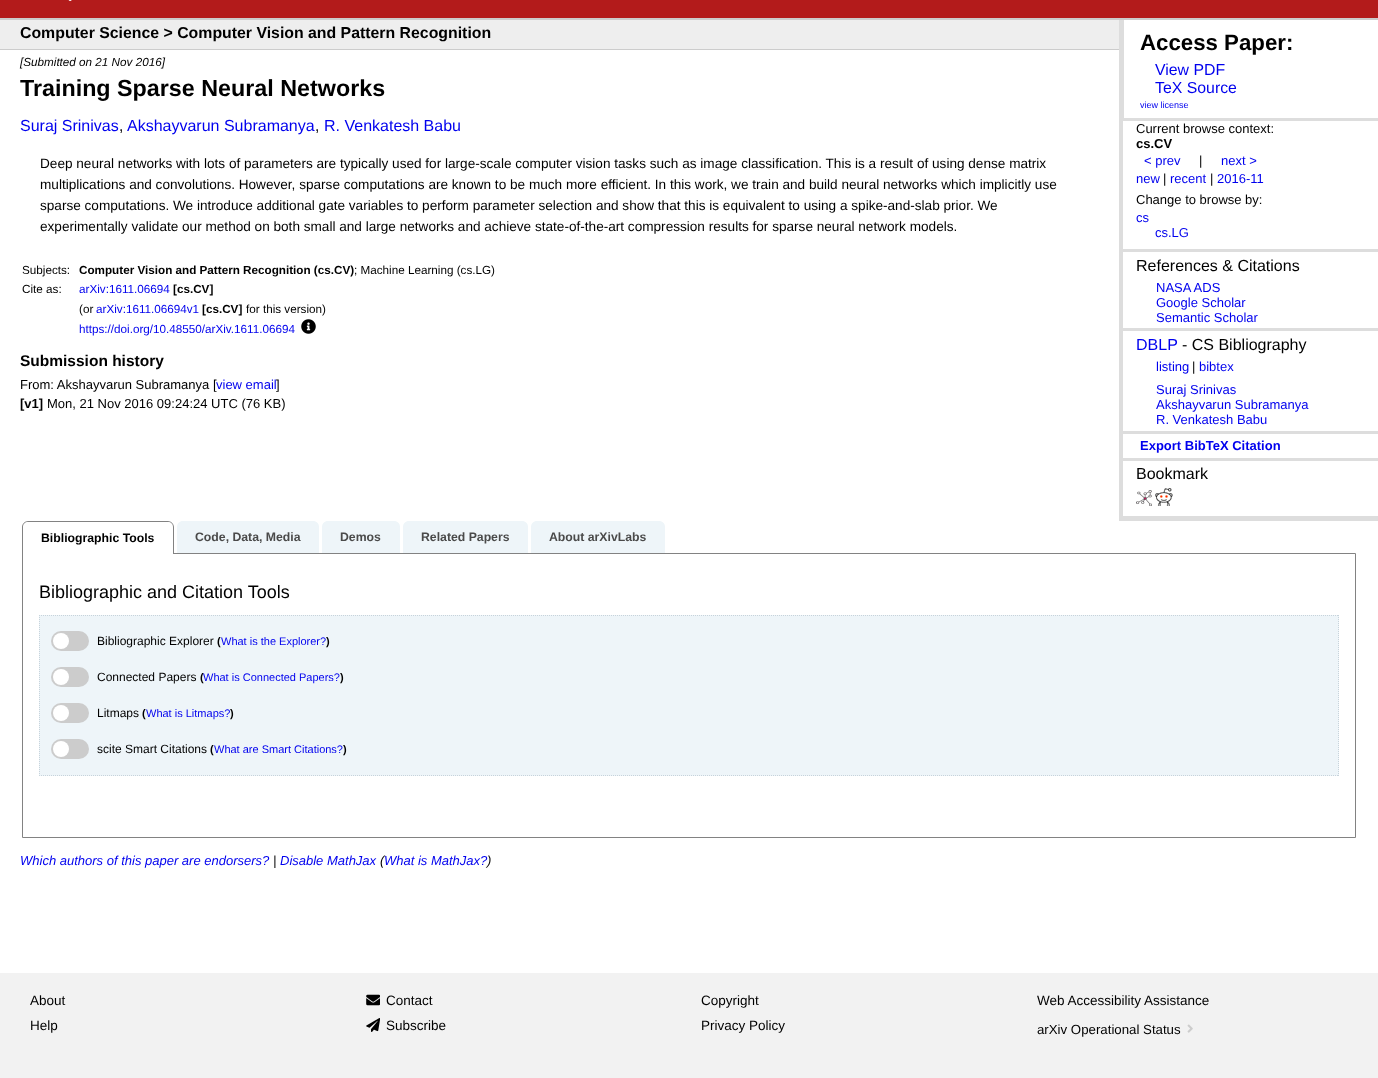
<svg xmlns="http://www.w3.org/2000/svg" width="1378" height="1078">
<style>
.a{font:bold 15.85px Liberation Sans;fill:#000}
.b{font:italic 11.7px Liberation Sans;fill:#000}
.c{font:bold 23.3px Liberation Sans;fill:#000}
.d{font:16px Liberation Sans;fill:#00e}
.e{font:15.5px Liberation Sans;fill:#000}
.f{font:13.6px Liberation Sans;fill:#000}
.g{font:11.7px Liberation Sans;fill:#000}
.h{font:bold 11.7px Liberation Sans;fill:#000}
.i{font:11.7px Liberation Sans;fill:#00e}
.j{font:bold 15.5px Liberation Sans;fill:#000}
.k{font:13px Liberation Sans;fill:#000}
.l{font:13px Liberation Sans;fill:#00e}
.m{font:bold 13px Liberation Sans;fill:#000}
.n{font:bold 22.25px Liberation Sans;fill:#000}
.o{font:15.85px Liberation Sans;fill:#00e}
.p{font:9px Liberation Sans;fill:#00e}
.q{font:16px Liberation Sans;fill:#000}
.r{font:bold 13px Liberation Sans;fill:#00e}
.s{font:bold 12.25px Liberation Sans;fill:#000}
.t{font:bold 12.25px Liberation Sans;fill:#4a4a4a}
.u{font:18px Liberation Sans;fill:#000}
.v{font:12px Liberation Sans;fill:#000}
.w{font:bold 11px Liberation Sans;fill:#000}
.x{font:11px Liberation Sans;fill:#00e}
.y{font:italic 13px Liberation Sans;fill:#00e}
.z{font:italic 13px Liberation Sans;fill:#000}
.a1{font:13.5px Liberation Sans;fill:#000}
.b1{font:13.25px Liberation Sans;fill:#000}
</style>
<rect width="100%" height="100%" fill="#fff"/>
<path fill="#b31b1b" d="M0 0h1378v18H0z"/>
<path fill="#ccc" d="M0 18h1378v2H0z"/>
<image href="1.png" x="68" y="0" width="4" height="1"/>
<path fill="#eee" d="M0 20h1119v29H0z"/>
<path fill="#ccc" d="M0 49h1119v1H0z"/>
<image href="2.png" x="301" y="319" width="15" height="15"/>
<path fill="#ddd" d="M1119 516h259v5H1119z"/>
<path fill="#ddd" d="M1119 118h259v3H1119z"/>
<path fill="#ddd" d="M1119 20h5v101H1119z"/>
<path fill="#ddd" d="M1119 249h259v3H1119z"/>
<path fill="#ddd" d="M1119 121h4v131H1119z"/>
<path fill="#ddd" d="M1119 328h259v3H1119z"/>
<path fill="#ddd" d="M1119 252h4v79H1119z"/>
<path fill="#ddd" d="M1119 431h259v3H1119z"/>
<path fill="#ddd" d="M1119 331h4v103H1119z"/>
<path fill="#ddd" d="M1119 458h259v3H1119z"/>
<path fill="#ddd" d="M1119 434h4v82H1119z"/>
<image href="3.png" x="1136" y="490" width="16" height="16"/>
<image href="4.png" x="1155" y="488" width="18" height="18"/>
<path fill="#eef5f9" d="M183 521h130c3.5 0 6 2.5 6 6v27h-142v-27c0-3.5 2.5-6 6-6z"/>
<path fill="#eef5f9" d="M328 521h66c3.5 0 6 2.5 6 6v27h-78v-27c0-3.5 2.5-6 6-6z"/>
<path fill="#eef5f9" d="M409 521h113c3.5 0 6 2.5 6 6v27h-125v-27c0-3.5 2.5-6 6-6z"/>
<path fill="#eef5f9" d="M537 521h122c3.5 0 6 2.5 6 6v27h-134v-27c0-3.5 2.5-6 6-6z"/>
<path fill="none" stroke="#828282" d="M22.5 553.5h1333v284H22.5z"/>
<path fill="#fff" d="M28 521h140c3.5 0 6 2.5 6 6v27h-152v-27c0-3.5 2.5-6 6-6z"/>
<path fill="#828282" fill-rule="evenodd" d="M28 521h140c3 0 6 3 6 6v27h-152v-27c0-3 3-6 6-6zm0 1h140c3 0 5 2 5 5v27h-150v-27c0-3 2-5 5-5z"/>
<path fill="#eef5f9" d="M39 615h1300v161H39z"/>
<path fill="none" stroke="#c7d3db" stroke-dasharray="1 1" d="M39 615.5h1300"/>
<path fill="none" stroke="#c7d3db" stroke-dasharray="1 1" d="M1338.5 615v161"/>
<path fill="none" stroke="#c7d3db" stroke-dasharray="1 1" d="M39 775.5h1300"/>
<path fill="none" stroke="#c7d3db" stroke-dasharray="1 1" d="M39.5 615v161"/>
<rect fill="#ccc" x="51" y="631" width="38" height="20" rx="10"/>
<circle fill="#fff" cx="61" cy="641" r="8"/>
<rect fill="#ccc" x="51" y="667" width="38" height="20" rx="10"/>
<circle fill="#fff" cx="61" cy="677" r="8"/>
<rect fill="#ccc" x="51" y="703" width="38" height="20" rx="10"/>
<circle fill="#fff" cx="61" cy="713" r="8"/>
<rect fill="#ccc" x="51" y="739" width="38" height="20" rx="10"/>
<circle fill="#fff" cx="61" cy="749" r="8"/>
<path fill="#f2f2f2" d="M0 973h1378v105H0z"/>
<image href="5.png" x="366" y="994" width="14" height="12"/>
<image href="6.png" x="366" y="1018" width="14" height="14"/>
<image href="7.png" x="1187" y="1024" width="6" height="9"/>
<text class="a" x="20" y="38">Computer Science &gt; Computer Vision and Pattern Recognition</text>
<text class="b" x="20" y="66">[Submitted on 21 Nov 2016]</text>
<text class="c" x="20" y="96">Training Sparse Neural Networks</text>
<text class="d" x="20" y="131">Suraj Srinivas</text>
<text class="e" x="119" y="131">,</text>
<text class="d" x="127" y="131">Akshayvarun Subramanya</text>
<text class="e" x="315" y="131">,</text>
<text class="d" x="324" y="131">R. Venkatesh Babu</text>
<text class="f" x="40" y="168">Deep neural networks with lots of parameters are typically used for large-scale computer vision tasks such as image classification. This is a result of using dense matrix</text>
<text class="f" x="40" y="189">multiplications and convolutions. However, sparse computations are known to be much more efficient. In this work, we train and build neural networks which implicitly use</text>
<text class="f" x="40" y="210">sparse computations. We introduce additional gate variables to perform parameter selection and show that this is equivalent to using a spike-and-slab prior. We</text>
<text class="f" x="40" y="231">experimentally validate our method on both small and large networks and achieve state-of-the-art compression results for sparse neural network models.</text>
<text class="g" x="22" y="274">Subjects:</text>
<text class="h" x="79" y="274">Computer Vision and Pattern Recognition (cs.CV)</text>
<text class="g" x="354" y="274">; Machine Learning (cs.LG)</text>
<text class="g" x="22" y="293">Cite as:</text>
<text class="i" x="79" y="293">arXiv:1611.06694</text>
<text class="h" x="173" y="293">[cs.CV]</text>
<text class="g" x="79" y="313">(or</text>
<text class="i" x="96" y="313">arXiv:1611.06694v1</text>
<text class="h" x="202" y="313">[cs.CV]</text>
<text class="g" x="246" y="313">for this version)</text>
<text class="i" x="79" y="333">https://doi.org/10.48550/arXiv.1611.06694</text>
<text class="j" x="20" y="366">Submission history</text>
<text class="k" x="20" y="389">From: Akshayvarun Subramanya [</text>
<text class="l" x="216" y="389">view email</text>
<text class="k" x="276" y="389">]</text>
<text class="m" x="20" y="408">[v1]</text>
<text class="k" x="47" y="408">Mon, 21 Nov 2016 09:24:24 UTC (76 KB)</text>
<text class="n" x="1140" y="50">Access Paper:</text>
<text class="o" x="1155" y="75">View PDF</text>
<text class="o" x="1155" y="93">TeX Source</text>
<text class="p" x="1140" y="108">view license</text>
<text class="k" x="1136" y="133">Current browse context:</text>
<text class="m" x="1136" y="148">cs.CV</text>
<text class="l" x="1144" y="165">&lt; prev</text>
<text class="k" x="1199" y="165">|</text>
<text class="l" x="1221" y="165">next &gt;</text>
<text class="l" x="1136" y="183">new</text>
<text class="k" x="1163" y="183">|</text>
<text class="l" x="1170" y="183">recent</text>
<text class="k" x="1210" y="183">|</text>
<text class="l" x="1217" y="183">2016-11</text>
<text class="k" x="1136" y="204">Change to browse by:</text>
<text class="l" x="1136" y="222">cs</text>
<text class="l" x="1155" y="237">cs.LG</text>
<text class="q" x="1136" y="271">References &amp; Citations</text>
<text class="l" x="1156" y="292">NASA ADS</text>
<text class="l" x="1156" y="307">Google Scholar</text>
<text class="l" x="1156" y="322">Semantic Scholar</text>
<text class="d" x="1136" y="350">DBLP</text>
<text class="q" x="1182" y="350">- CS Bibliography</text>
<text class="l" x="1156" y="371">listing</text>
<text class="k" x="1192" y="371">|</text>
<text class="l" x="1199" y="371">bibtex</text>
<text class="l" x="1156" y="394">Suraj Srinivas</text>
<text class="l" x="1156" y="409">Akshayvarun Subramanya</text>
<text class="l" x="1156" y="424">R. Venkatesh Babu</text>
<text class="r" x="1140" y="450">Export BibTeX Citation</text>
<text class="q" x="1136" y="479">Bookmark</text>
<text class="s" x="41" y="542">Bibliographic Tools</text>
<text class="t" x="195" y="541">Code, Data, Media</text>
<text class="t" x="340" y="541">Demos</text>
<text class="t" x="421" y="541">Related Papers</text>
<text class="t" x="549" y="541">About arXivLabs</text>
<text class="u" x="39" y="598">Bibliographic and Citation Tools</text>
<text class="v" x="97" y="645">Bibliographic Explorer</text>
<text class="w" x="217" y="645">(</text>
<text class="x" x="221" y="645">What is the Explorer?</text>
<text class="w" x="326" y="645">)</text>
<text class="v" x="97" y="681">Connected Papers</text>
<text class="w" x="200" y="681">(</text>
<text class="x" x="203" y="681">What is Connected Papers?</text>
<text class="w" x="340" y="681">)</text>
<text class="v" x="97" y="717">Litmaps</text>
<text class="w" x="142" y="717">(</text>
<text class="x" x="146" y="717">What is Litmaps?</text>
<text class="w" x="230" y="717">)</text>
<text class="v" x="97" y="753">scite Smart Citations</text>
<text class="w" x="210" y="753">(</text>
<text class="x" x="214" y="753">What are Smart Citations?</text>
<text class="w" x="343" y="753">)</text>
<text class="y" x="20" y="865">Which authors of this paper are endorsers?</text>
<text class="z" x="273" y="865">|</text>
<text class="y" x="280" y="865">Disable MathJax</text>
<text class="z" x="380" y="865">(</text>
<text class="y" x="384" y="865">What is MathJax?</text>
<text class="z" x="487" y="865">)</text>
<text class="a1" x="30" y="1005">About</text>
<text class="a1" x="30" y="1030">Help</text>
<text class="a1" x="386" y="1005">Contact</text>
<text class="a1" x="386" y="1030">Subscribe</text>
<text class="a1" x="701" y="1005">Copyright</text>
<text class="a1" x="701" y="1030">Privacy Policy</text>
<text class="a1" x="1037" y="1005">Web Accessibility Assistance</text>
<text class="b1" x="1037" y="1034">arXiv Operational Status</text>
</svg>
